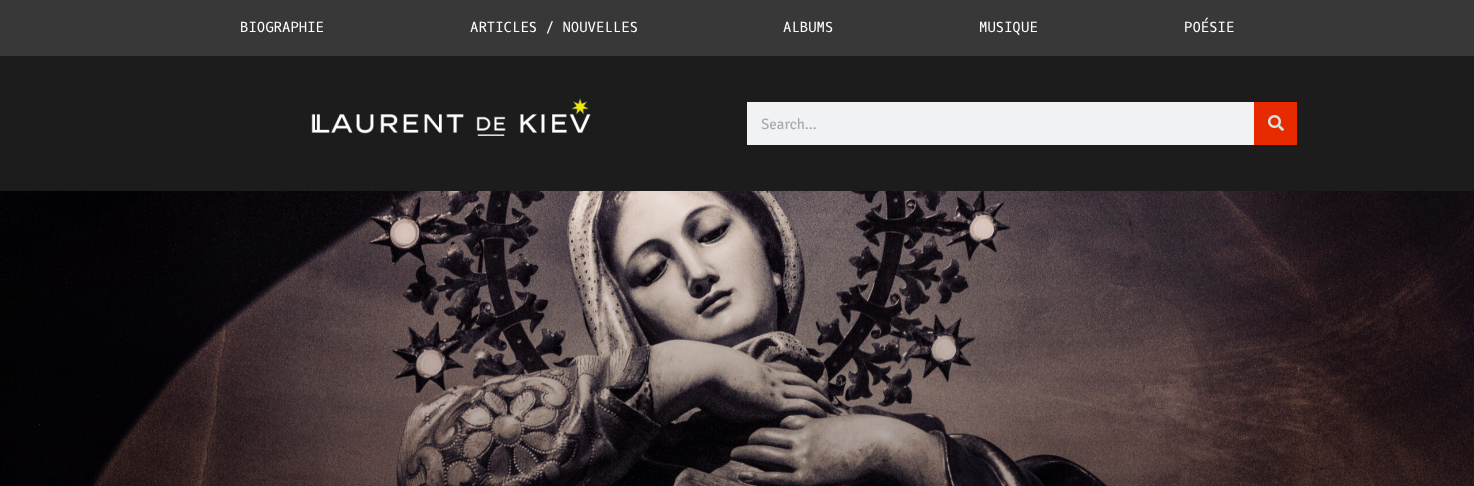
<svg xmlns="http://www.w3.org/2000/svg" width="1474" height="486">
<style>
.a{font:14px Oxygen Mono;fill:#fff}
.b{font:15px Signika Negative;fill:#aaa}
</style>
<rect width="100%" height="100%" fill="#1c1c1c"/>
<path fill="#383838" d="M0 0h1474v56H0z"/>
<image href="1.png" x="311" y="98" width="280" height="38"/>
<path fill="#f1f2f3" d="M747 102h507v43H747z"/>
<path fill="#e82a00" d="M1254 102h43v43H1254z"/>
<image href="2.png" x="1268" y="115" width="16" height="16"/>
<image href="3.png" x="0" y="191" width="1474" height="295"/>
<text class="a" x="240" y="32">BIOGRAPHIE</text>
<text class="a" x="470" y="32">ARTICLES / NOUVELLES</text>
<text class="a" x="783" y="32">ALBUMS</text>
<text class="a" x="979" y="32">MUSIQUE</text>
<text class="a" x="1184" y="32">POÉSIE</text>
<text class="b" x="761" y="129">Search...</text>
</svg>
